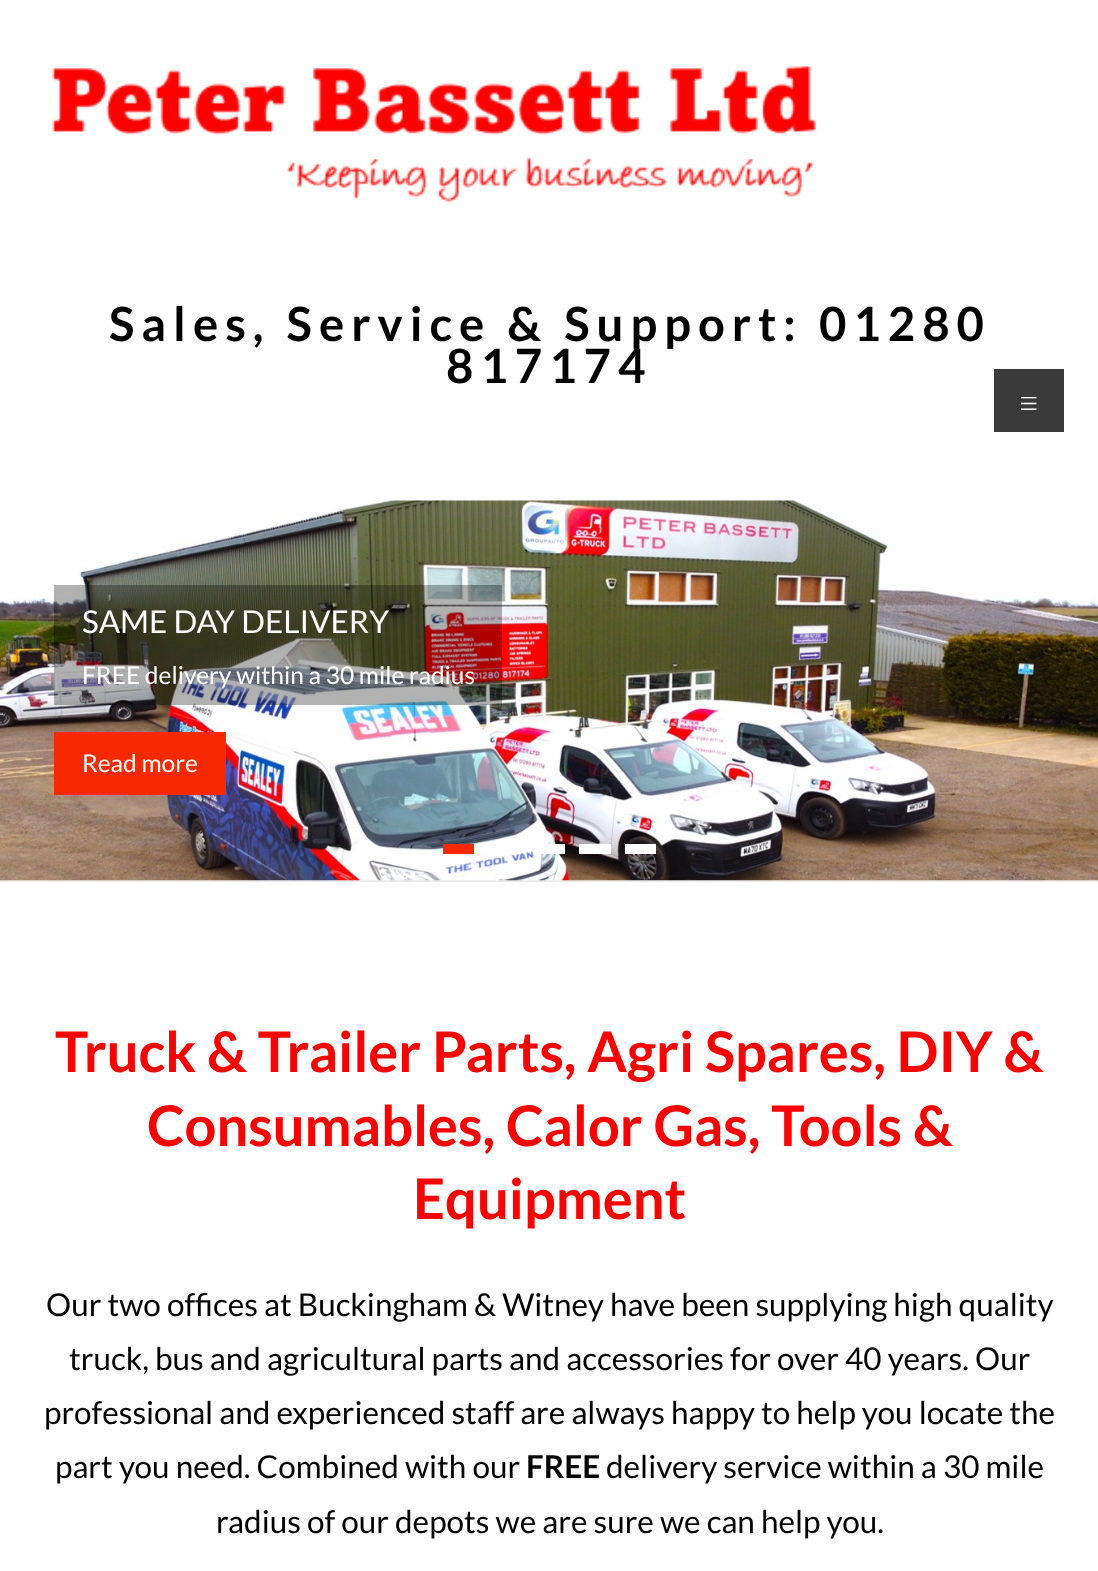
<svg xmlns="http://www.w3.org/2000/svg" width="1098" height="1571">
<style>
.a{font:bold 47.25px Lato;letter-spacing:7px;fill:#000}
.b{font:300 37px Lato;fill:#fff}
.c{font:31.5px Lato;fill:#fff}
.d{font:24.5px Lato;fill:#fff}
.e{font:bold 56px Lato;fill:#f00}
.f{font:31.5px Lato;fill:#000}
.g{font:bold 31.5px Lato;fill:#000}
</style>
<rect width="100%" height="100%" fill="#fff"/>
<image href="1.png" x="52" y="65" width="764" height="137"/>
<path fill="#3a3a3a" d="M994 369h70v63H994z"/>
<path fill="#eaeaea" d="M0 880h1098v2H0z"/>
<image href="2.png" x="0" y="500" width="1098" height="381"/>
<path fill="#0000004d" d="M54 585h448v120H54z"/>
<path fill="#f72900" d="M54 732h172v63H54z"/>
<path fill="#f72900" d="M443 844h31v10H443z"/>
<path fill="#fff" d="M488 844h32v10H488z"/>
<path fill="#fff" d="M534 844h31v10H534z"/>
<path fill="#fff" d="M579 844h32v10H579z"/>
<path fill="#fff" d="M625 844h31v10H625z"/>
<text class="a" x="109" y="341">Sales, Service &amp; Support: 01280</text>
<text class="a" x="446" y="383">817174</text>
<text class="b" x="1018" y="416">≡</text>
<text class="c" x="82" y="633">SAME DAY DELIVERY</text>
<text class="d" x="82" y="684">FREE delivery within a 30 mile radius</text>
<text class="d" x="82" y="772">Read more</text>
<text class="e" x="55" y="1072">Truck &amp; Trailer Parts, Agri Spares, DIY &amp;</text>
<text class="e" x="147" y="1146">Consumables, Calor Gas, Tools &amp;</text>
<text class="e" x="413" y="1219">Equipment</text>
<text class="f" x="46" y="1316">Our two offices at Buckingham &amp; Witney have been supplying high quality</text>
<text class="f" x="69" y="1370">truck, bus and agricultural parts and accessories for over 40 years. Our</text>
<text class="f" x="44" y="1424">professional and experienced staff are always happy to help you locate the</text>
<text class="f" x="55" y="1478">part you need. Combined with our</text>
<text class="g" x="526" y="1478">FREE</text>
<text class="f" x="606" y="1478">delivery service within a 30 mile</text>
<text class="f" x="216" y="1533">radius of our depots we are sure we can help you.</text>
</svg>
